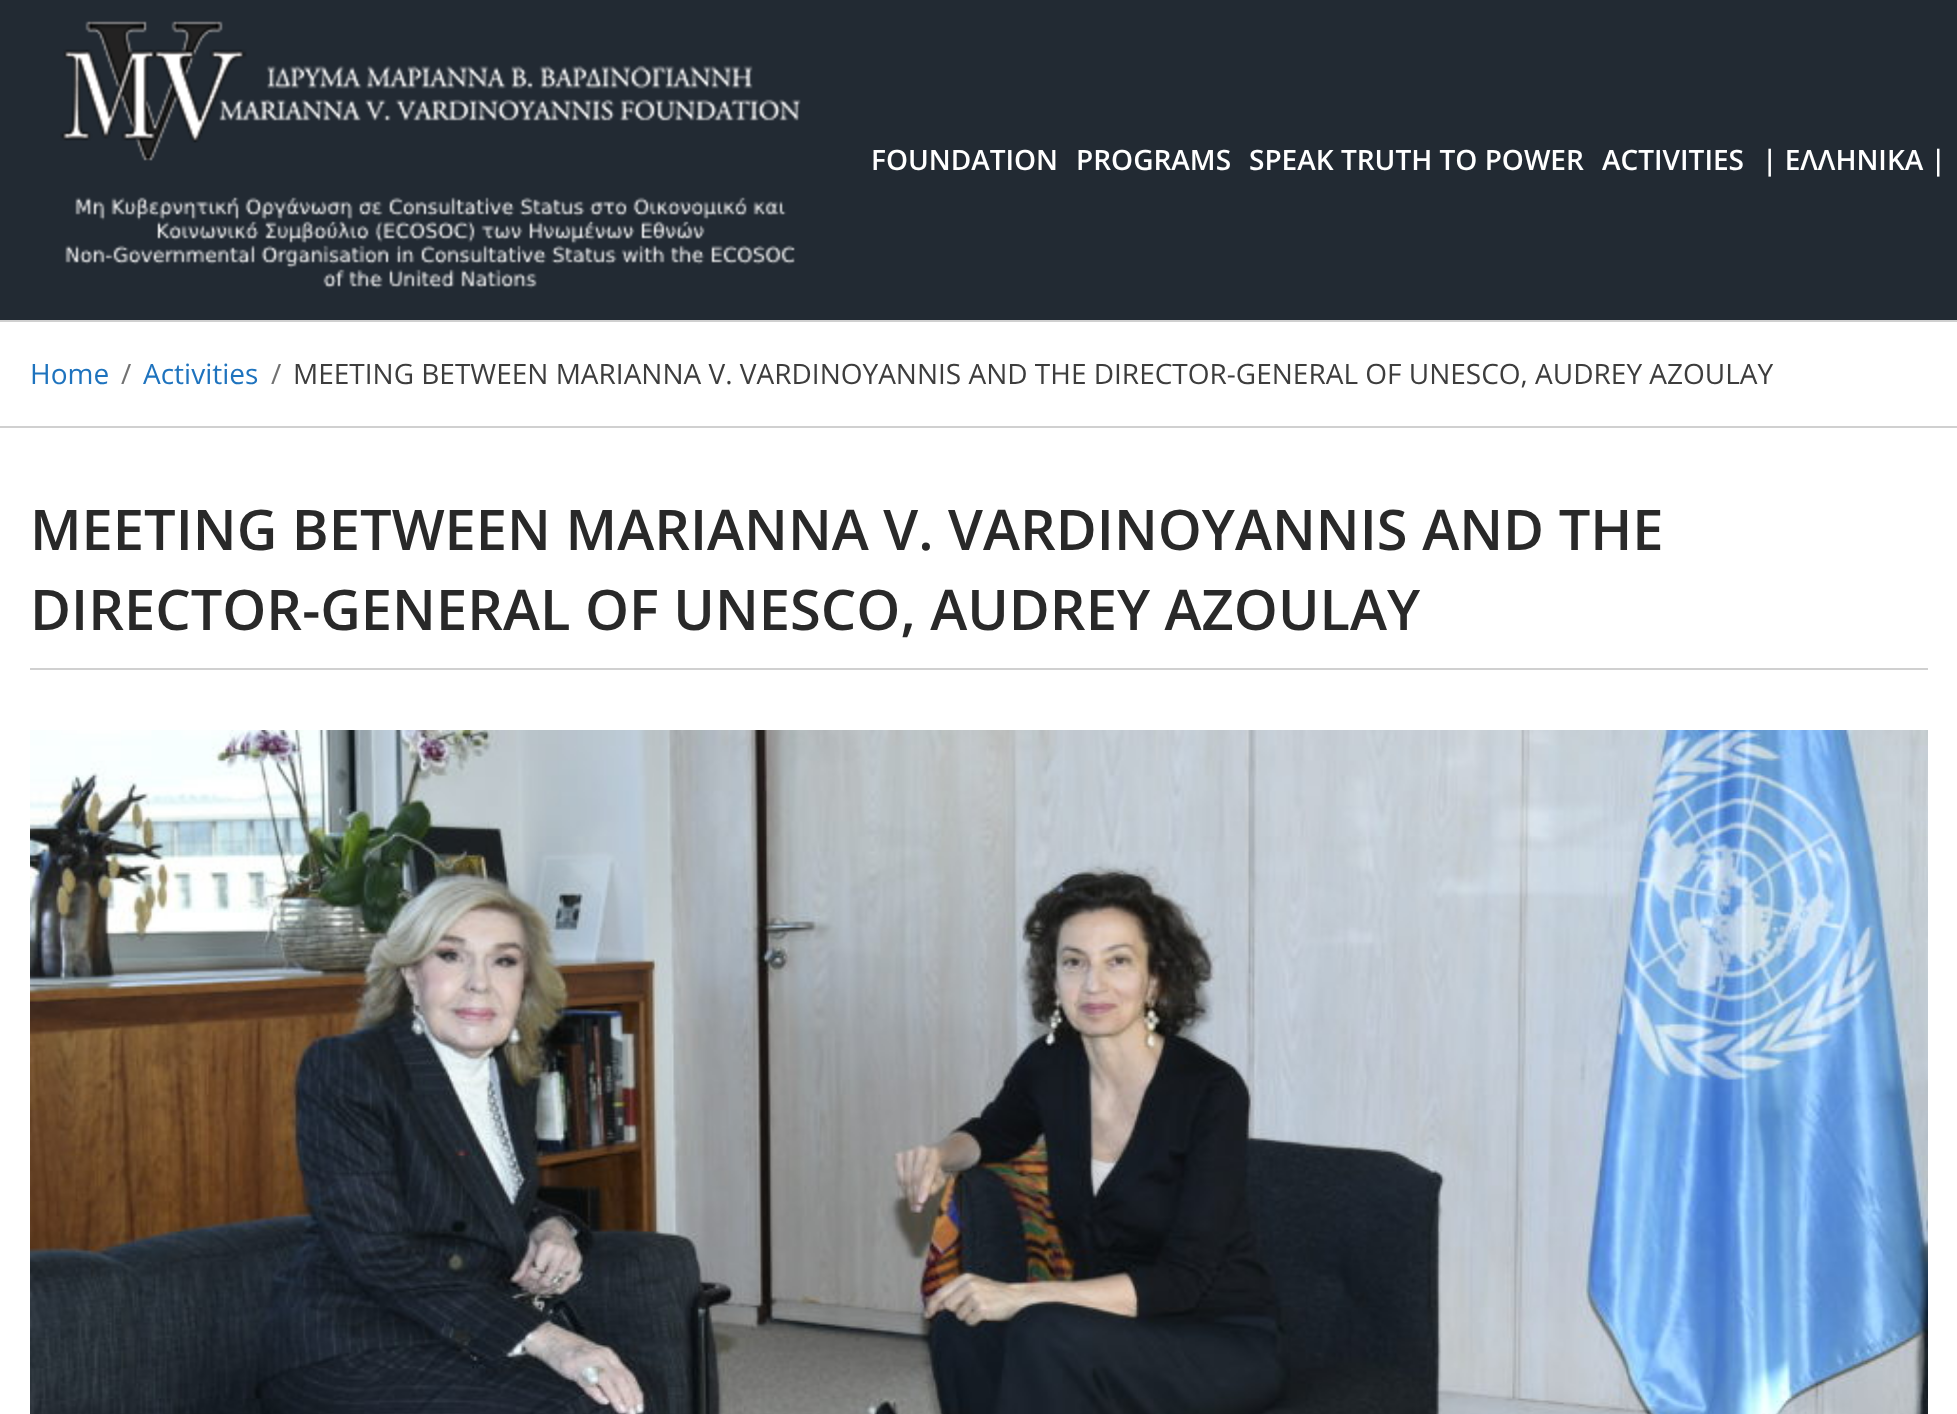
<svg xmlns="http://www.w3.org/2000/svg" width="1957" height="1414">
<style>
.a{font:600 28px Open Sans;fill:#fff}
.b{font:28px Open Sans;fill:#1e73be}
.c{font:28px Open Sans;fill:#717171}
.d{font:28px Open Sans;fill:#3d3d3d}
.e{font:600 56px Open Sans;fill:#292929}
</style>
<rect width="100%" height="100%" fill="#fff"/>
<path fill="#d0d0d0" d="M0 320h1957v2H0z"/>
<path fill="#222a33" d="M0 0h1957v320H0z"/>
<image href="1.png" x="60" y="21" width="741" height="268"/>
<path fill="#d0d0d0" d="M0 426h1957v2H0z"/>
<path fill="#d0d0d0" d="M30 668h1898v2H30z"/>
<image href="2.png" x="30" y="730" width="1898" height="684"/>
<text class="a" x="871" y="170">FOUNDATION</text>
<text class="a" x="1076" y="170">PROGRAMS</text>
<text class="a" x="1249" y="170">SPEAK TRUTH TO POWER</text>
<text class="a" x="1602" y="170">ACTIVITIES</text>
<text class="a" x="1762" y="170">| ΕΛΛΗΝΙΚΑ |</text>
<text class="b" x="30" y="384">Home</text>
<text class="c" x="121" y="384">/</text>
<text class="b" x="143" y="384">Activities</text>
<text class="c" x="271" y="384">/</text>
<text class="d" x="293" y="384">MEETING BETWEEN MARIANNA V. VARDINOYANNIS AND THE DIRECTOR-GENERAL OF UNESCO, AUDREY AZOULAY</text>
<text class="e" x="30" y="550">MEETING BETWEEN MARIANNA V. VARDINOYANNIS AND THE</text>
<text class="e" x="30" y="630">DIRECTOR-GENERAL OF UNESCO, AUDREY AZOULAY</text>
</svg>
